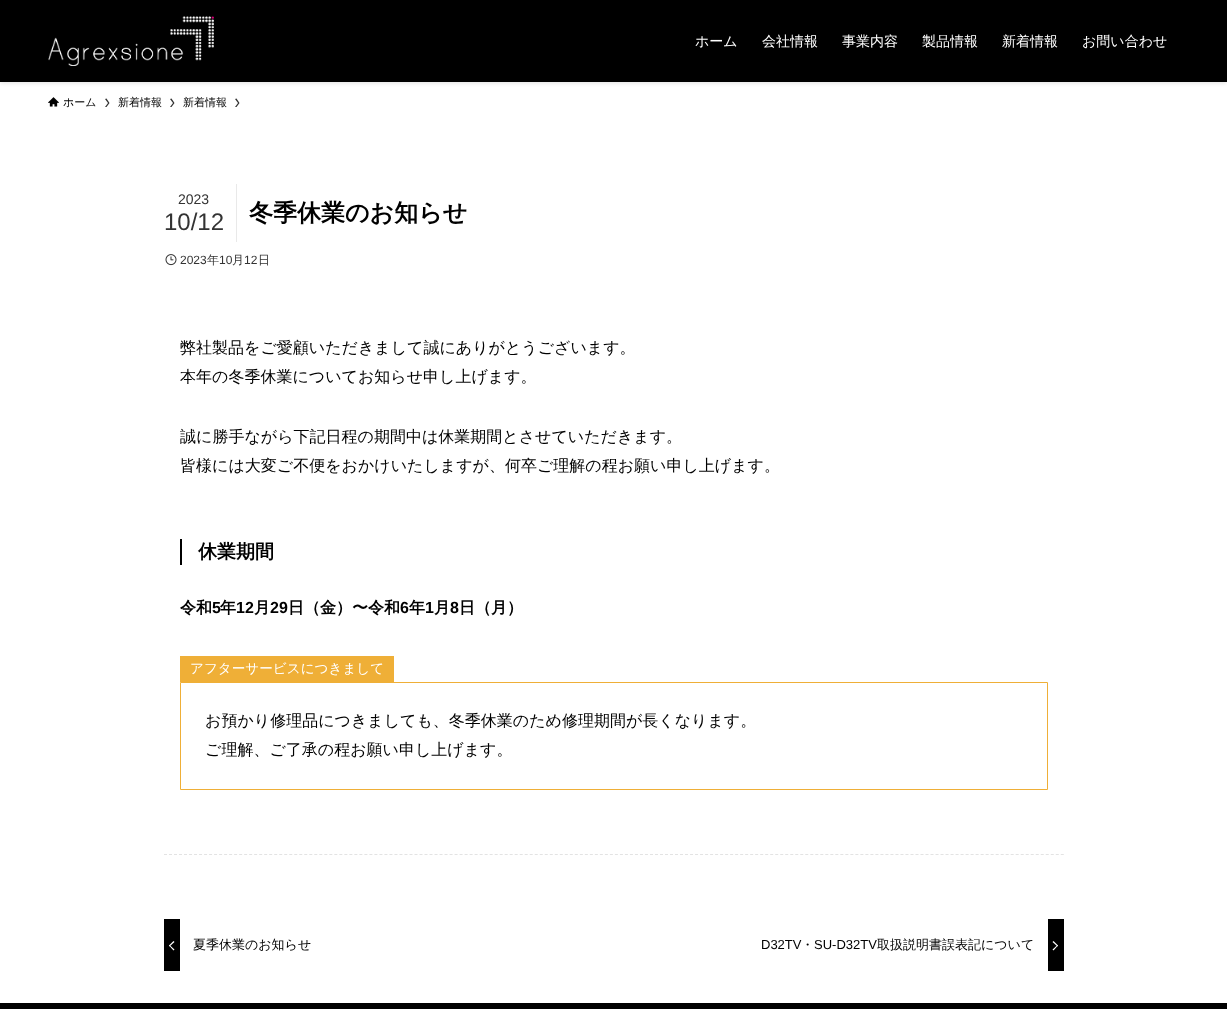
<svg xmlns="http://www.w3.org/2000/svg" width="1227" height="1009">
<style>
.a{font:500 14px WenQuanYi Zen Hei;fill:#fff}
.b{font:500 11px WenQuanYi Zen Hei;fill:#000}
.c{font:14px Liberation Sans;fill:#333}
.d{font:24px Liberation Sans;fill:#333}
.e{font:bold 24px WenQuanYi Zen Hei;fill:#000}
.f{font:12px Liberation Sans;fill:#333}
.g{font:500 12px WenQuanYi Zen Hei;fill:#333}
.h{font:500 16px WenQuanYi Zen Hei;fill:#000}
.i{font:bold 19px WenQuanYi Zen Hei;fill:#000}
.j{font:bold 16px WenQuanYi Zen Hei;fill:#000}
.k{font:bold 16px Liberation Sans;fill:#000}
.l{font:500 13.6px WenQuanYi Zen Hei;fill:#fff}
.m{font:500 13px WenQuanYi Zen Hei;fill:#000}
.n{font:13px Liberation Sans;fill:#000}
</style>
<rect width="100%" height="100%" fill="#fff"/>
<path fill="#0000001f" filter="blur(2px)" d="M0 1h1227v82H0z"/>
<path fill="#000" d="M0 0h1227v82H0z"/>
<image href="1.png" x="48" y="16" width="166" height="50"/>
<image href="2.png" x="48" y="97" width="11" height="10"/>
<path fill="#333" d="M106.5 98.5l-1.5 .5l3 4l-3 4h1.5l3-4z"/>
<path fill="#333" d="M171.5 98.5l-1.5 .5l3 4l-3 4h1.5l3-4z"/>
<path fill="#333" d="M236.5 98.5l-1.5 .5l3 4l-3 4h1.5l3-4z"/>
<path fill="#e9e9e9" d="M236 184h1v58H236z"/>
<image href="3.png" x="165" y="254" width="12" height="12"/>
<path fill="#000" d="M180 539h2v26H180z"/>
<path fill="#efaf37" d="M180 656h214v26H180z"/>
<path fill="none" stroke="#efaf37" d="M180.5 682.5h867v107H180.5z"/>
<path fill="none" stroke="#e3e3e3" stroke-dasharray="3 2.01" d="M164 854.5h900"/>
<path fill="#000" d="M164 919h16v52H164z"/>
<path fill="#fff" d="M169.5 945l5 4.5l-1 1l-4.5-5z"/>
<path fill="#fff" d="M173.5 941l1 1l-5 4.5l-.5-1z"/>
<path fill="#000" d="M1048 919h16v52H1048z"/>
<path fill="#fff" d="M1052.5 942l1-1l4.5 4.5l-.5 1z"/>
<path fill="#fff" d="M1052.5 949.5l5-4.5l.5 .5l-4.5 5z"/>
<path fill="#000" d="M0 1003h1227v6H0z"/>
<text class="a" x="695" y="46">ホーム</text>
<text class="a" x="762" y="46">会社情報</text>
<text class="a" x="842" y="46">事業内容</text>
<text class="a" x="922" y="46">製品情報</text>
<text class="a" x="1002" y="46">新着情報</text>
<text class="a" x="1082" y="46">お問い合わせ</text>
<text class="b" x="63" y="106">ホーム</text>
<text class="b" x="118" y="106">新着情報</text>
<text class="b" x="183" y="106">新着情報</text>
<text class="c" x="178" y="204">2023</text>
<text class="d" x="164" y="230">10/12</text>
<text class="e" x="249" y="221">冬季休業のお知らせ</text>
<text class="f" x="180" y="264">2023</text>
<text class="g" x="207" y="264">年</text>
<text class="f" x="219" y="264">10</text>
<text class="g" x="232" y="264">月</text>
<text class="f" x="244" y="264">12</text>
<text class="g" x="258" y="264">日</text>
<text class="h" x="180" y="353">弊社製品をご愛顧いただきまして誠にありがとうございます。</text>
<text class="h" x="180" y="382">本年の冬季休業についてお知らせ申し上げます。</text>
<text class="h" x="180" y="442">誠に勝手ながら下記日程の期間中は休業期間とさせていただきます。</text>
<text class="h" x="180" y="471">皆様には大変ご不便をおかけいたしますが、何卒ご理解の程お願い申し上げます。</text>
<text class="i" x="198" y="558">休業期間</text>
<text class="j" x="180" y="613">令和</text>
<text class="k" x="212" y="613">5</text>
<text class="j" x="220" y="613">年</text>
<text class="k" x="236" y="613">12</text>
<text class="j" x="254" y="613">月</text>
<text class="k" x="270" y="613">29</text>
<text class="j" x="288" y="613">日（金）〜令和</text>
<text class="k" x="400" y="613">6</text>
<text class="j" x="409" y="613">年</text>
<text class="k" x="425" y="613">1</text>
<text class="j" x="434" y="613">月</text>
<text class="k" x="450" y="613">8</text>
<text class="j" x="459" y="613">日（月）</text>
<text class="l" x="190" y="673">アフターサービスにつきまして</text>
<text class="h" x="205" y="726">お預かり修理品につきましても、冬季休業のため修理期間が長くなります。</text>
<text class="h" x="205" y="755">ご理解、ご了承の程お願い申し上げます。</text>
<text class="m" x="193" y="949">夏季休業のお知らせ</text>
<text class="n" x="761" y="949">D32TV</text>
<text class="m" x="801" y="949">・</text>
<text class="n" x="814" y="949">SU-D32TV</text>
<text class="m" x="877" y="949">取扱説明書誤表記について</text>
</svg>
